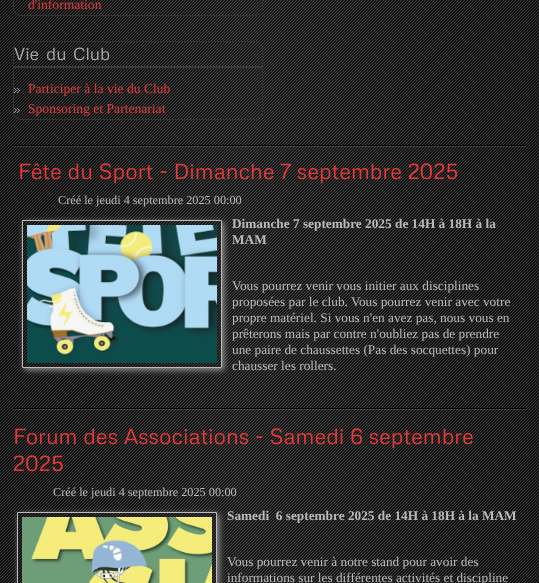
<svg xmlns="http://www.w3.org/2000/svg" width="539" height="583">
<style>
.a{font:13.6px Liberation Serif;fill:#e73939}
.b{font:17.5px Metrophobic;fill:#aaa}
.c{font:21.75px Metrophobic;fill:#e73939}
.d{font:12.25px Liberation Serif;fill:#bbb}
.e{font:bold 13.3px Liberation Serif;fill:#bbb}
.f{font:13.3px Liberation Serif;fill:#bbb}
</style>
<defs>
<clipPath id="clip1"><path d="M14 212h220v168h-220zm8 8h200v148h-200z" clip-rule="evenodd"/></clipPath>
<clipPath id="clip2"><path d="M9 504h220v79h-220zm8 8h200v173h-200z" clip-rule="evenodd"/></clipPath>
</defs>
<rect width="100%" height="100%" fill="#000"/>
<image href="1.png" x="0" y="0" width="539" height="583"/>
<image href="2.png" x="0" y="0" width="539" height="583"/>
<rect fill="none" stroke="#333" x="13.5" y="-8.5" width="249" height="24" rx="7.5"/>
<rect fill="none" stroke="#333" x="13.5" y="41.5" width="249" height="78" rx="7.5"/>
<path fill="#3a3a3a" d="M14 66h248v2H14z"/>
<image href="3.png" x="14" y="88" width="6" height="5"/>
<image href="4.png" x="14" y="108" width="6" height="5"/>
<image href="5.png" x="13" y="145" width="513" height="2"/>
<g clip-path="url(#clip1)">
<path fill="#999" filter="blur(3px)" d="M24 222h200v148H24z"/>
</g>
<path fill="none" stroke="#bdbcb8" d="M22.5 220.5h199v147H22.5z"/>
<image href="6.png" x="27" y="225" width="190" height="138"/>
<image href="7.png" x="13" y="408" width="513" height="2"/>
<g clip-path="url(#clip2)">
<path fill="#999" filter="blur(3px)" d="M19 514h200v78H19z"/>
</g>
<path fill="none" stroke="#bdbcb8" d="M17.5 512.5h199v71H17.5z"/>
<image href="8.png" x="22" y="517" width="190" height="66"/>
<text class="a" x="28" y="9">d'information</text>
<text class="b" x="14" y="60">Vie</text>
<text class="b" x="46" y="60" word-spacing="2">du Club</text>
<text class="a" x="28" y="93">Participer à la vie du Club</text>
<text class="a" x="28" y="113">Sponsoring et Partenariat</text>
<text class="c" x="18" y="179">Fête du Sport - Dimanche 7 septembre 2025</text>
<text class="d" x="58" y="204">Créé le jeudi 4 septembre 2025 00:00</text>
<text class="e" x="232" y="228">Dimanche 7 septembre 2025 de 14H à 18H à la</text>
<text class="e" x="232" y="244">MAM</text>
<text class="f" x="232" y="290">Vous pourrez venir vous initier aux disciplines</text>
<text class="f" x="232" y="306">proposées par le club. Vous pourrez venir avec votre</text>
<text class="f" x="232" y="322">propre matériel. Si vous n'en avez pas, nous vous en</text>
<text class="f" x="232" y="338">prêterons mais par contre n'oubliez pas de prendre</text>
<text class="f" x="232" y="354">une paire de chaussettes (Pas des socquettes) pour</text>
<text class="f" x="232" y="370">chausser les rollers.</text>
<text class="c" x="13" y="444">Forum des Associations - Samedi 6 septembre</text>
<text class="c" x="13" y="471">2025</text>
<text class="d" x="53" y="496">Créé le jeudi 4 septembre 2025 00:00</text>
<text class="e" xml:space="preserve" x="227" y="520">Samedi  6 septembre 2025 de 14H à 18H à la MAM</text>
<text class="f" x="227" y="566">Vous pourrez venir à notre stand pour avoir des</text>
<text class="f" x="227" y="582">informations sur les différentes activités et discipline</text>
</svg>
